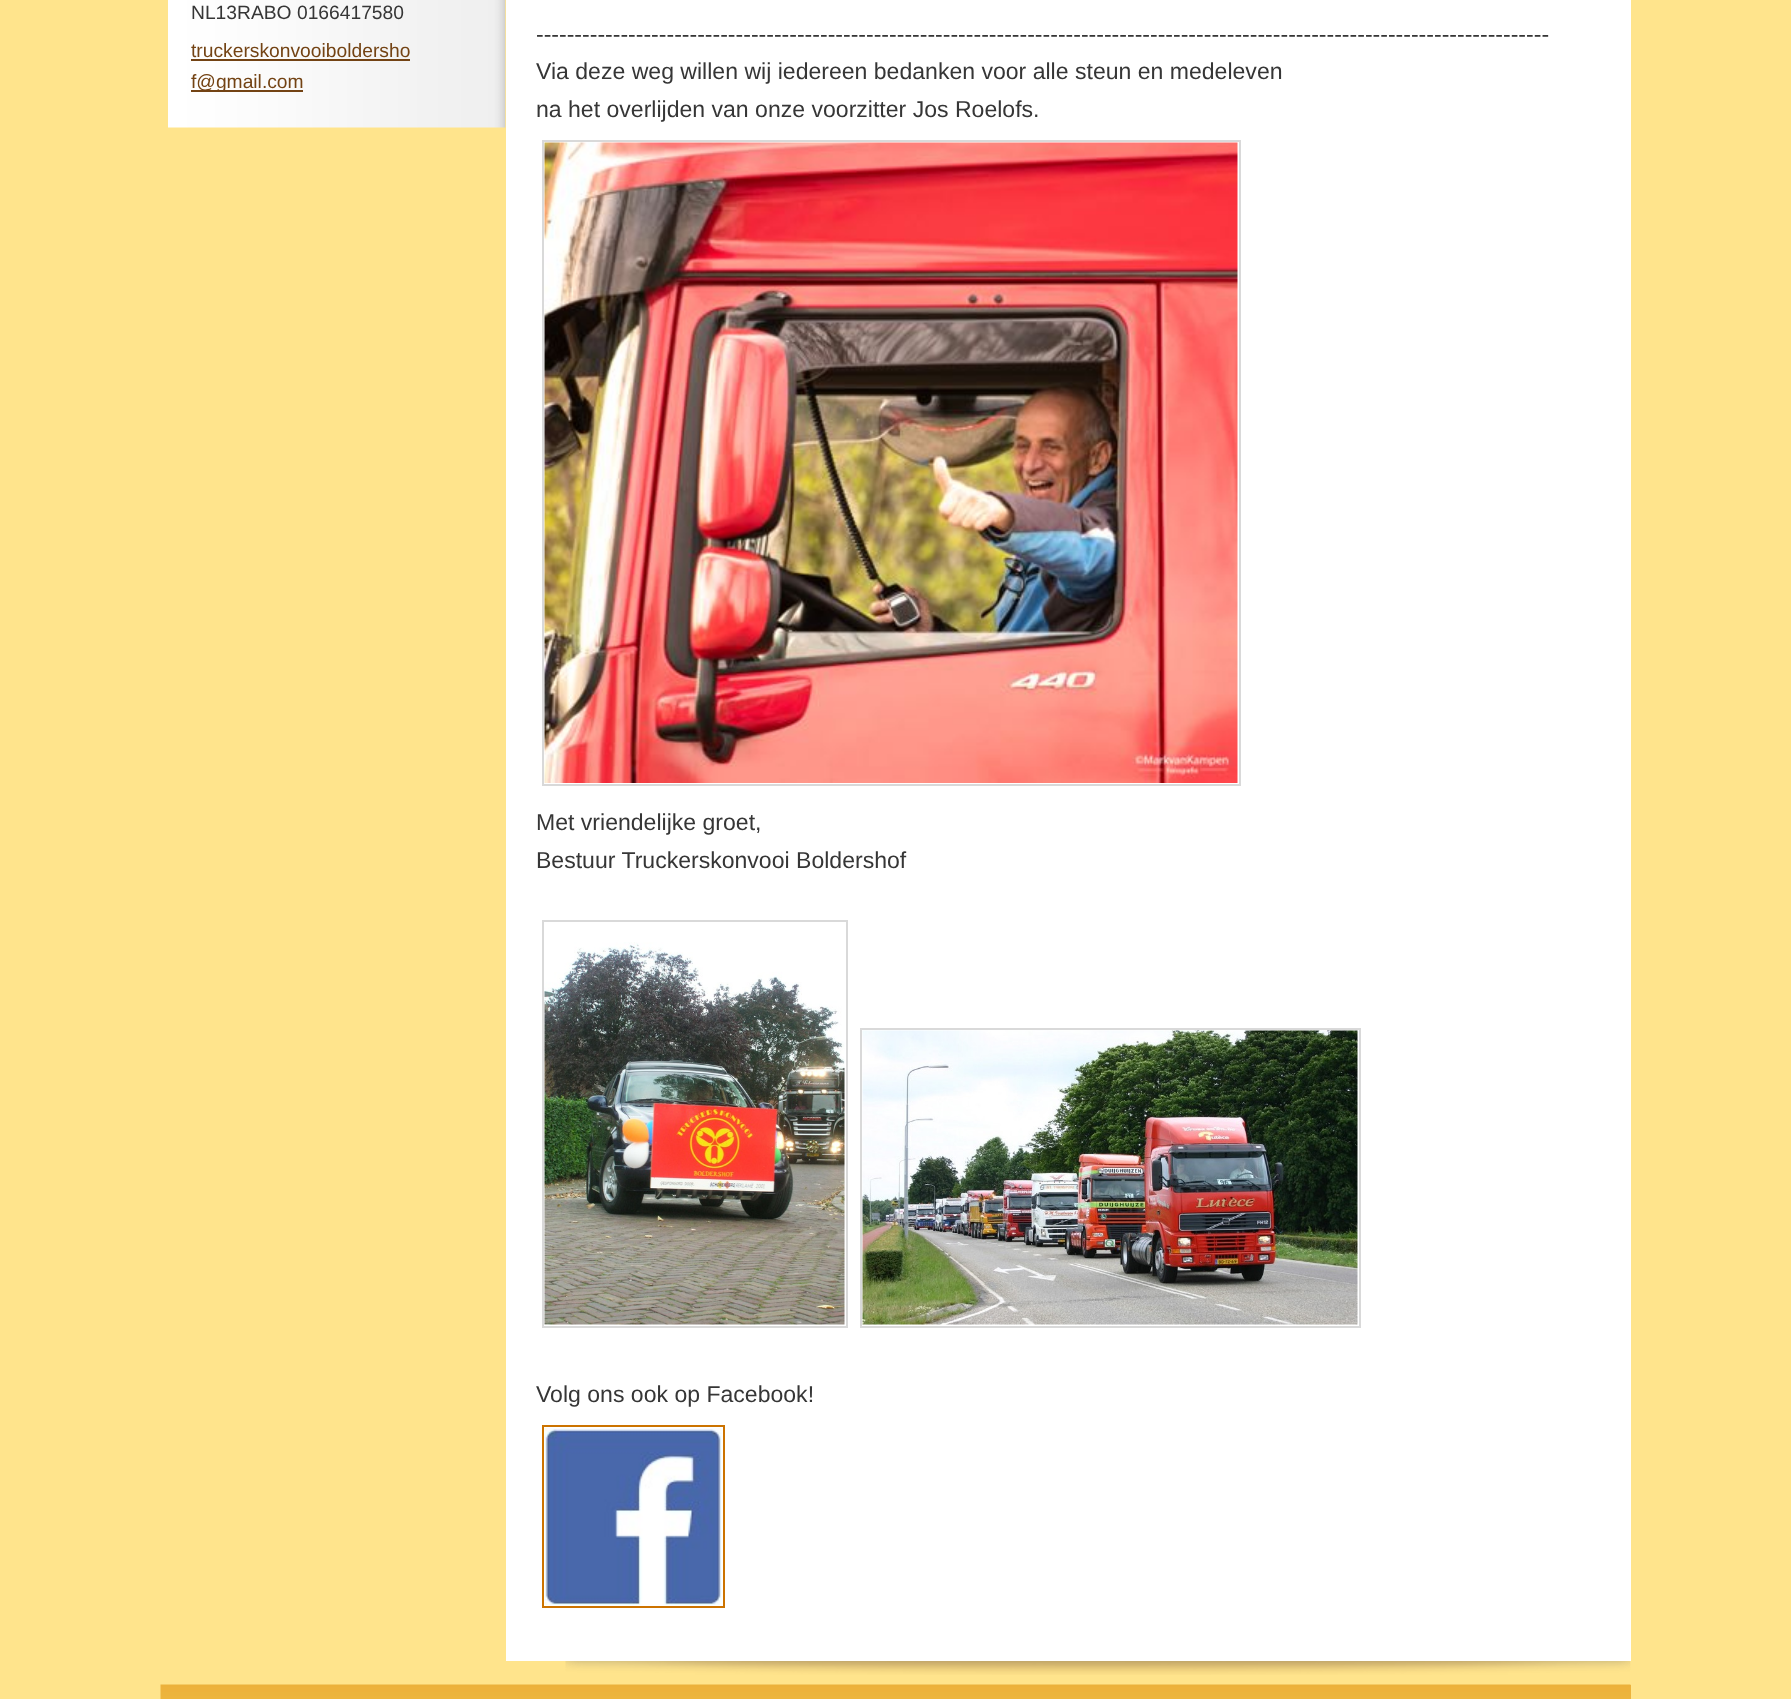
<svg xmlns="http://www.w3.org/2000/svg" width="1791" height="1699">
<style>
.a{font:19.25px Liberation Sans;fill:#363636}
.b{font:19.25px Liberation Sans;fill:#734314}
.c{font:23.05px Liberation Sans;fill:#363636}
</style>
<rect width="100%" height="100%" fill="#ffe48c"/>
<image href="1.png" x="168" y="0" width="338" height="128"/>
<path fill="#734314" d="M191 59h219v2H191z"/>
<path fill="#734314" d="M191 90h112v2H191z"/>
<image href="2.png" x="565" y="1661" width="1066" height="14"/>
<path fill="#fff" d="M506 0h1125v1661H506z"/>
<path fill="none" stroke="#d9d9d9" stroke-width="2" d="M543 141h697v644H543z"/>
<image href="3.png" x="544" y="142" width="694" height="641"/>
<path fill="none" stroke="#d9d9d9" stroke-width="2" d="M543 921h304v406H543z"/>
<image href="4.png" x="544" y="942" width="301" height="383"/>
<path fill="none" stroke="#d9d9d9" stroke-width="2" d="M861 1029h499v298H861z"/>
<image href="5.png" x="862" y="1030" width="496" height="295"/>
<path fill="none" stroke="#cc7300" stroke-width="2" d="M543 1426h181v181H543z"/>
<image href="6.png" x="544" y="1428" width="178" height="177"/>
<path fill="#edb23c" d="M1630 1685h1v14H1630z"/>
<image href="7.png" x="160" y="1684" width="1471" height="15"/>
<text class="a" x="191" y="19">NL13RABO 0166417580</text>
<text class="b" x="191" y="57">truckerskonvooiboldersho</text>
<text class="b" x="191" y="88">f@gmail.com</text>
<text class="c" x="536" y="42">------------------------------------------------------------------------------------------------------------------------------------</text>
<text class="c" x="536" y="79">Via deze weg willen wij iedereen bedanken voor alle steun en medeleven</text>
<text class="c" x="536" y="117">na het overlijden van onze voorzitter Jos Roelofs.</text>
<text class="c" x="536" y="830">Met vriendelijke groet,</text>
<text class="c" x="536" y="868">Bestuur Truckerskonvooi Boldershof</text>
<text class="c" x="536" y="1402">Volg ons ook op Facebook!</text>
</svg>
